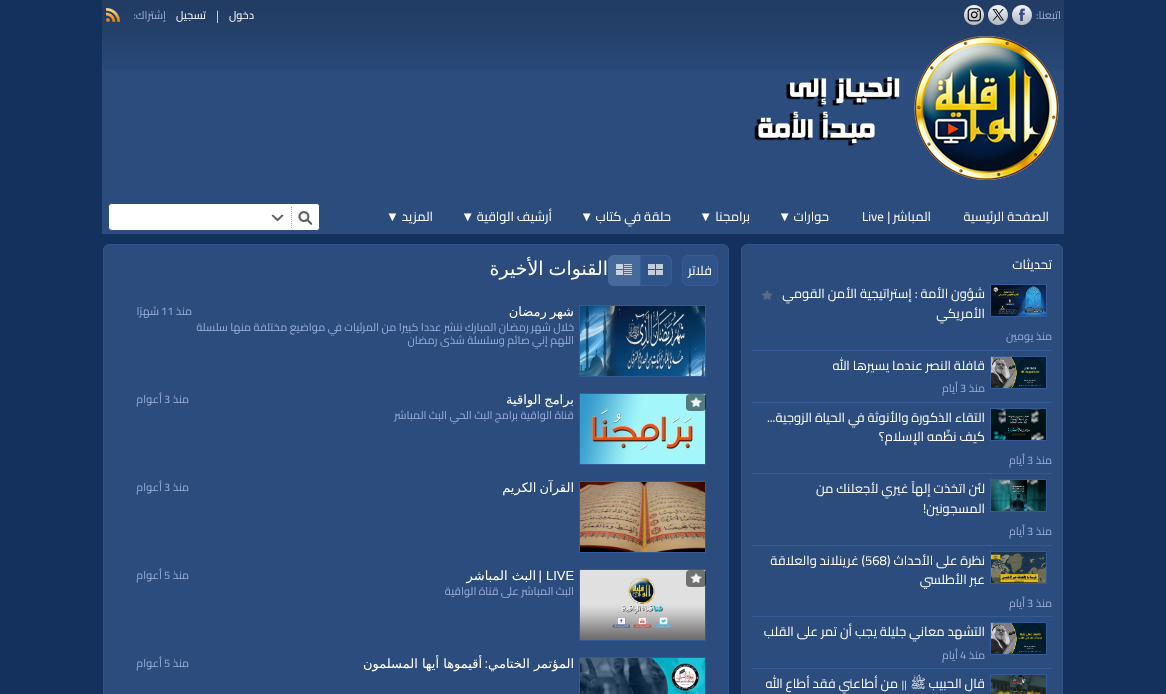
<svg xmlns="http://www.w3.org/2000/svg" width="1166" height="694">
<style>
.a{font:11px Cairo;direction:rtl;fill:#9aafdb}
.b{font:11px Cairo;direction:rtl;fill:#fff}
.c{font:13px Cairo;fill:#ccc}
.d{font:13px Cairo;direction:rtl;fill:#fff}
.e{font:13px Cairo;fill:#fff}
.f{font:13px Liberation Sans;direction:rtl;fill:#fff}
.g{font:13px Liberation Sans;fill:#fff}
.h{font:11px Cairo;fill:#9aafdb}
.i{font:13px Lateef;direction:rtl;fill:#fff}
.j{font:19px DejaVu Sans;direction:rtl;fill:#fff}
.k{font:13px DejaVu Sans;direction:rtl;fill:#fff}
</style>
<rect width="100%" height="100%" fill="#14315e"/>
<path fill="#2b4c7d" d="M102 0h962v234H102z"/>
<image href="1.png" x="102" y="0" width="962" height="70"/>
<image href="2.png" x="1012" y="5" width="20" height="20"/>
<image href="3.png" x="988" y="5" width="20" height="20"/>
<image href="4.png" x="964" y="5" width="20" height="20"/>
<image href="5.png" x="106" y="8" width="14" height="14"/>
<image href="6.png" x="754" y="36" width="305" height="144"/>
<rect fill="#fff" stroke="#2b4c7d" x="108.5" y="203.5" width="211" height="27" rx="3.5"/>
<image href="7.png" x="291" y="204" width="28" height="26"/>
<image href="8.png" x="271" y="214" width="13" height="7"/>
<rect fill="#fff" x="109" y="204" width="154" height="24" rx="4"/>
<rect fill="#2b4c7d" stroke="#2f548a" x="741.5" y="244.5" width="321" height="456" rx="5.5"/>
<path fill="#345b96" d="M752 350h300v1H752z"/>
<path fill="none" stroke="#345b96" d="M990.5 284.5h56v32H990.5z"/>
<image href="9.png" x="991" y="285" width="55" height="31"/>
<image href="10.png" x="761" y="290" width="12" height="10"/>
<path fill="#345b96" d="M752 402h300v1H752z"/>
<path fill="none" stroke="#345b96" d="M990.5 356.5h56v32H990.5z"/>
<image href="11.png" x="991" y="357" width="55" height="31"/>
<path fill="#345b96" d="M752 473h300v1H752z"/>
<path fill="none" stroke="#345b96" d="M990.5 408.5h56v32H990.5z"/>
<image href="12.png" x="991" y="409" width="55" height="31"/>
<path fill="#345b96" d="M752 545h300v1H752z"/>
<path fill="none" stroke="#345b96" d="M990.5 479.5h56v32H990.5z"/>
<image href="13.png" x="991" y="480" width="55" height="31"/>
<path fill="#345b96" d="M752 616h300v1H752z"/>
<path fill="none" stroke="#345b96" d="M990.5 551.5h56v32H990.5z"/>
<image href="14.png" x="991" y="552" width="55" height="31"/>
<path fill="#345b96" d="M752 668h300v1H752z"/>
<path fill="none" stroke="#345b96" d="M990.5 622.5h56v32H990.5z"/>
<image href="15.png" x="991" y="623" width="55" height="31"/>
<path fill="none" stroke="#345b96" d="M990.5 674.5h56v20H990.5z"/>
<image href="16.png" x="991" y="675" width="55" height="19"/>
<rect fill="#2b4c7d" stroke="#2f548a" x="103.5" y="244.5" width="625" height="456" rx="5.5"/>
<rect fill="#2f548a" stroke="#345d99" x="682.5" y="255.5" width="35" height="30" rx="5.5"/>
<path fill="#2f548a" d="M640 255h26c3.5 0 6 2.5 6 6v19c0 3.5-2.5 6-6 6h-26z"/>
<image href="17.png" x="648" y="264" width="15" height="11"/>
<path fill="none" stroke="#345d99" d="M640.5 255.5h25.5c3 0 5.5 2.5 5.5 5.5v19c0 3-2.5 5.5-5.5 5.5h-25.5z"/>
<path fill="#466a99" d="M614 255h26v31h-26c-3.5 0-6-2.5-6-6v-19c0-3.5 2.5-6 6-6z"/>
<image href="18.png" x="616" y="264" width="16" height="11"/>
<path fill="none" stroke="#466a99" d="M614 255.5h25.5v30h-25.5c-3 0-5.5-2.5-5.5-5.5v-19c0-3 2.5-5.5 5.5-5.5z"/>
<path fill="none" stroke="#345b96" d="M579.5 305.5h126v71H579.5z"/>
<image href="19.png" x="580" y="306" width="125" height="70"/>
<path fill="none" stroke="#345b96" d="M579.5 393.5h126v71H579.5z"/>
<image href="20.png" x="580" y="394" width="125" height="70"/>
<rect fill="#00000080" x="686" y="394" width="20" height="17" rx="4"/>
<image href="21.png" x="690" y="397" width="12" height="10"/>
<path fill="none" stroke="#345b96" d="M579.5 481.5h126v71H579.5z"/>
<image href="22.png" x="580" y="482" width="125" height="70"/>
<path fill="none" stroke="#345b96" d="M579.5 569.5h126v71H579.5z"/>
<image href="23.png" x="580" y="570" width="125" height="70"/>
<rect fill="#00000080" x="686" y="570" width="20" height="17" rx="4"/>
<image href="24.png" x="690" y="573" width="12" height="10"/>
<path fill="none" stroke="#345b96" d="M579.5 657.5h126v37H579.5z"/>
<image href="25.png" x="580" y="658" width="125" height="36"/>
<text class="a" x="1061" y="19">اتبعنا:</text>
<text class="b" x="254" y="19">دخول</text>
<text class="c" x="216" y="20">|</text>
<text class="b" x="206" y="19">تسجيل</text>
<text class="a" x="166" y="19">إشتراك:</text>
<text class="d" x="1049" y="221">الصفحة الرئيسية</text>
<text class="d" x="931" y="221">المباشر |</text>
<text class="e" x="862" y="221">Live</text>
<text class="d" x="829" y="221">حوارات</text>
<text class="f" x="791" y="221">▼</text>
<text class="d" x="750" y="221">برامجنا</text>
<text class="f" x="712" y="221">▼</text>
<text class="d" x="671" y="221">حلقة في كتاب</text>
<text class="f" x="593" y="221">▼</text>
<text class="d" x="552" y="221">أرشيف الواقية</text>
<text class="f" x="474" y="221">▼</text>
<text class="d" x="433" y="221">المزيد</text>
<text class="g" x="386" y="221">▼</text>
<text class="d" x="1052" y="269">تحديثات</text>
<text class="d" x="985" y="298">شؤون الأمة : إستراتيجية الأمن القومي</text>
<text class="d" x="985" y="318">الأمريكي</text>
<text class="a" x="1052" y="340">منذ يومين</text>
<text class="d" x="985" y="370">قافلة النصر عندما يسيرها الله</text>
<text class="a" x="985" y="392">منذ</text>
<text class="h" x="960" y="392">3</text>
<text class="a" x="958" y="392">أيام</text>
<text class="d" x="985" y="422">التقاء الذكورة والأنوثة في الحياة الزوجية...</text>
<text class="d" x="985" y="441">كيف نظّمه الإسلام؟</text>
<text class="a" x="1052" y="464">منذ</text>
<text class="h" x="1027" y="464">3</text>
<text class="a" x="1025" y="464">أيام</text>
<text class="d" x="985" y="493">لئن اتخذت إلهاً غيري لأجعلنك من</text>
<text class="d" x="985" y="513">المسجونين!</text>
<text class="a" x="1052" y="535">منذ</text>
<text class="h" x="1027" y="535">3</text>
<text class="a" x="1025" y="535">أيام</text>
<text class="d" x="985" y="565">نظرة على الأحداث (</text>
<text class="e" x="865" y="565">568</text>
<text class="d" x="865" y="565">) غرينلاند والعلاقة</text>
<text class="d" x="985" y="584">عبر الأطلسي</text>
<text class="a" x="1052" y="607">منذ</text>
<text class="h" x="1027" y="607">3</text>
<text class="a" x="1025" y="607">أيام</text>
<text class="d" x="985" y="636">التشهد معاني جليلة يجب أن تمر على القلب</text>
<text class="a" x="985" y="659">منذ</text>
<text class="h" x="960" y="659">4</text>
<text class="a" x="958" y="659">أيام</text>
<text class="d" x="985" y="688">قال الحبيب</text>
<text class="i" x="926" y="688">ﷺ</text>
<text class="i" x="907" y="688">||</text>
<text class="d" x="898" y="688">من أطاعني فقد أطاع الله</text>
<text class="d" x="712" y="275">فلاتر</text>
<text class="j" x="608" y="275" word-spacing="-1">القنوات الأخيرة</text>
<text class="k" x="574" y="316" word-spacing="-1">شهر رمضان</text>
<text class="a" x="192" y="315">منذ</text>
<text class="h" x="161" y="315">11</text>
<text class="a" x="159" y="315">شهرًا</text>
<text class="a" x="574" y="331">خلال شهر رمضان المبارك ننشر عددا كبيرا من المرئيات في مواضيع مختلفة منها سلسلة</text>
<text class="a" x="574" y="344">اللهم إني صائم وسلسلة شذى رمضان</text>
<text class="k" x="574" y="404" word-spacing="-1">برامج الواقية</text>
<text class="a" x="189" y="403">منذ</text>
<text class="h" x="164" y="403">3</text>
<text class="a" x="162" y="403">أعوام</text>
<text class="a" x="574" y="419">قناة الواقية برامج البث الحي البث المباشر</text>
<text class="k" x="574" y="492" word-spacing="-1">القرآن الكريم</text>
<text class="a" x="189" y="491">منذ</text>
<text class="h" x="164" y="491">3</text>
<text class="a" x="162" y="491">أعوام</text>
<text class="g" x="546" y="580">LIVE</text>
<text class="f" x="542" y="580">|</text>
<text class="k" x="536" y="580">البث المباشر</text>
<text class="a" x="189" y="579">منذ</text>
<text class="h" x="164" y="579">5</text>
<text class="a" x="162" y="579">أعوام</text>
<text class="a" x="574" y="595">البث المباشر على قناة الواقية</text>
<text class="k" x="574" y="668">المؤتمر الختامي</text>
<text class="f" x="488" y="668">:</text>
<text class="k" x="482" y="668">أقيموها أيها المسلمون</text>
<text class="a" x="189" y="667">منذ</text>
<text class="h" x="164" y="667">5</text>
<text class="a" x="162" y="667">أعوام</text>
</svg>
